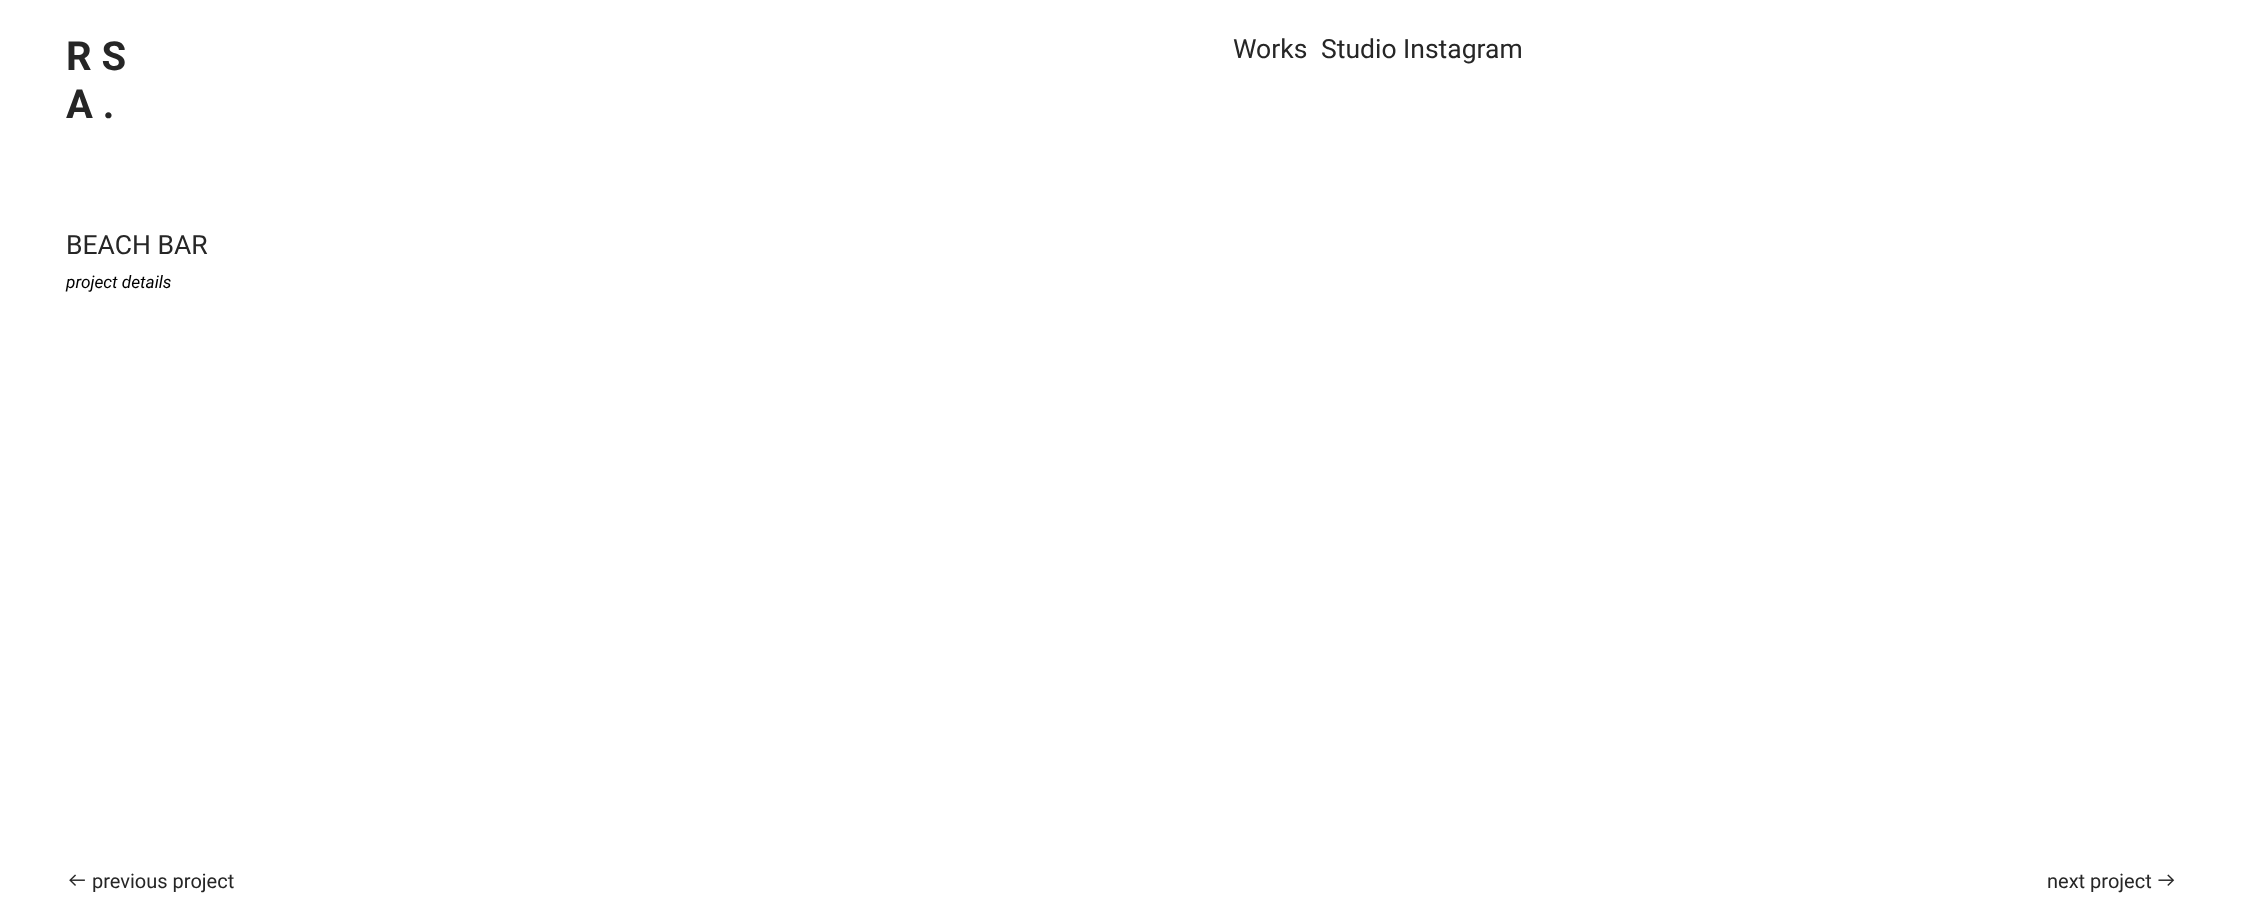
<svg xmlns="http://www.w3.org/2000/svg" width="2242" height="919">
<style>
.a{font:bold 40px Roboto;fill:#262626}
.b{font:26.5px Roboto;fill:#262626}
.c{font:italic 17.25px Roboto;fill:#000}
.d{font:20px Roboto;fill:#262626}
</style>
<rect width="100%" height="100%" fill="#fff"/>
<image href="1.png" x="69" y="874" width="16" height="12"/>
<image href="2.png" x="2158" y="874" width="17" height="12"/>
<text class="a" x="66" y="70">R S</text>
<text class="a" x="66" y="118">A .</text>
<text class="b" x="1233" y="58">Works</text>
<text class="b" x="1321" y="58">Studio Instagram</text>
<text class="b" x="66" y="254">BEACH BAR</text>
<text class="c" x="66" y="288">project details</text>
<text class="d" x="92" y="888">previous project</text>
<text class="d" x="2047" y="888">next project</text>
</svg>
